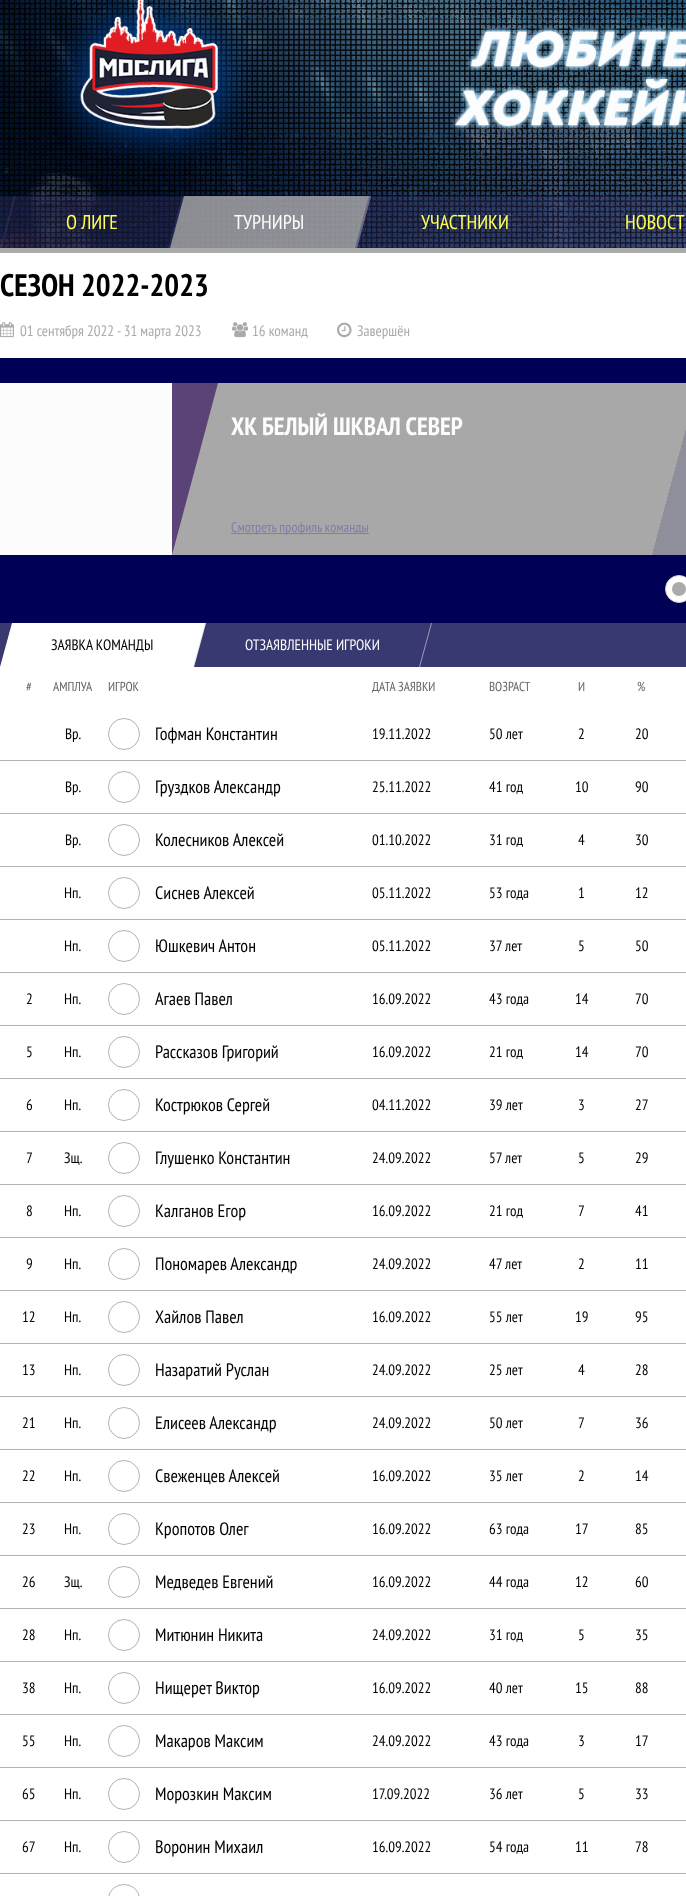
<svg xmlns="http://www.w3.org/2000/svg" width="686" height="1896">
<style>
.a{font:20px PT Sans Narrow;fill:#ff5}
.b{font:20px PT Sans Narrow;fill:#fcfcfd}
.c{font:bold 31px PT Sans Narrow;fill:#000}
.d{font:15px PT Sans Narrow;fill:#aaa}
.e{font:bold 25px PT Sans Narrow;fill:#fcfcfd}
.f{font:14px PT Sans Narrow;fill:#7e7ea9}
.g{font:15px PT Sans Narrow;fill:#000}
.h{font:15px PT Sans Narrow;fill:#fcfcfd}
.i{font:13px PT Sans Narrow;fill:#656565}
.j{font:18px PT Sans Narrow;fill:#000}
</style>
<defs>
<linearGradient id="g1" gradientUnits="userSpaceOnUse" x1="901" y1="589" x2="9" y2="349"><stop offset="0.27" stop-color="#8f8f9c"/><stop offset="0.27" stop-color="#a8a8a9"/><stop offset="1" stop-color="#a8a8a9"/></linearGradient>
</defs>
<rect width="100%" height="100%" fill="#005"/>
<image href="1.png" x="0" y="0" width="686" height="248"/>
<image href="2.png" x="50" y="0" width="636" height="165"/>
<path fill="#39397157" d="M0 196h686v52H0z"/>
<path fill="#39397173" d="M182 196h2l-14 52h-2z"/>
<path fill="#39397173" d="M14 196h2l-14 52h-2z"/>
<path fill="#aaaaaacc" d="M184 196h187l-14 52h-187z"/>
<path fill="#39397173" d="M369 196h2l-14 52h-2z"/>
<path fill="#39397173" d="M573 196h2l-14 52h-2z"/>
<path fill="#aaa" d="M0 248h686v5H0z"/>
<path fill="#fff" d="M0 253h686v105H0z"/>
<image href="3.png" x="0" y="322" width="14" height="16"/>
<image href="4.png" x="232" y="322" width="16" height="16"/>
<image href="5.png" x="337" y="322" width="15" height="16"/>
<path fill="url(#g1)" d="M172 383h514v172H172z"/>
<path fill="#5c4377" d="M125 383h93l-46 172h-93z"/>
<path fill="#fcfcfd" d="M0 383h172v172H0z"/>
<path fill="#7e7ea9" d="M231 533h138v1H231z"/>
<circle fill="#fff" stroke="#cfcfcf" cx="679" cy="589" r="13.5"/>
<circle fill="#aaa" cx="679" cy="589" r="7"/>
<path fill="#393971" d="M0 623h686v44H0z"/>
<path fill="#fff" d="M12 623h194l-12 44h-194z"/>
<path fill="#aaaaaa4d" d="M205 623h1l-12 44h-1z"/>
<path fill="#9c9cb8" d="M431 623h1l-12 44h-1z"/>
<path fill="#fff" d="M0 708h686v1188H0z"/>
<path fill="#fff" d="M0 667h686v41H0z"/>
<path fill="#b3b3b3" d="M0 760h686v1H0z"/>
<circle fill="none" stroke="#b3b3b3" cx="124" cy="734" r="15.5"/>
<path fill="#b3b3b3" d="M0 813h686v1H0z"/>
<circle fill="none" stroke="#b3b3b3" cx="124" cy="787" r="15.5"/>
<path fill="#b3b3b3" d="M0 866h686v1H0z"/>
<circle fill="none" stroke="#b3b3b3" cx="124" cy="840" r="15.5"/>
<path fill="#b3b3b3" d="M0 919h686v1H0z"/>
<circle fill="none" stroke="#b3b3b3" cx="124" cy="893" r="15.5"/>
<path fill="#b3b3b3" d="M0 972h686v1H0z"/>
<circle fill="none" stroke="#b3b3b3" cx="124" cy="946" r="15.5"/>
<path fill="#b3b3b3" d="M0 1025h686v1H0z"/>
<circle fill="none" stroke="#b3b3b3" cx="124" cy="999" r="15.5"/>
<path fill="#b3b3b3" d="M0 1078h686v1H0z"/>
<circle fill="none" stroke="#b3b3b3" cx="124" cy="1052" r="15.5"/>
<path fill="#b3b3b3" d="M0 1131h686v1H0z"/>
<circle fill="none" stroke="#b3b3b3" cx="124" cy="1105" r="15.5"/>
<path fill="#b3b3b3" d="M0 1184h686v1H0z"/>
<circle fill="none" stroke="#b3b3b3" cx="124" cy="1158" r="15.5"/>
<path fill="#b3b3b3" d="M0 1237h686v1H0z"/>
<circle fill="none" stroke="#b3b3b3" cx="124" cy="1211" r="15.5"/>
<path fill="#b3b3b3" d="M0 1290h686v1H0z"/>
<circle fill="none" stroke="#b3b3b3" cx="124" cy="1264" r="15.5"/>
<path fill="#b3b3b3" d="M0 1343h686v1H0z"/>
<circle fill="none" stroke="#b3b3b3" cx="124" cy="1317" r="15.5"/>
<path fill="#b3b3b3" d="M0 1396h686v1H0z"/>
<circle fill="none" stroke="#b3b3b3" cx="124" cy="1370" r="15.5"/>
<path fill="#b3b3b3" d="M0 1449h686v1H0z"/>
<circle fill="none" stroke="#b3b3b3" cx="124" cy="1423" r="15.5"/>
<path fill="#b3b3b3" d="M0 1502h686v1H0z"/>
<circle fill="none" stroke="#b3b3b3" cx="124" cy="1476" r="15.5"/>
<path fill="#b3b3b3" d="M0 1555h686v1H0z"/>
<circle fill="none" stroke="#b3b3b3" cx="124" cy="1529" r="15.5"/>
<path fill="#b3b3b3" d="M0 1608h686v1H0z"/>
<circle fill="none" stroke="#b3b3b3" cx="124" cy="1582" r="15.5"/>
<path fill="#b3b3b3" d="M0 1661h686v1H0z"/>
<circle fill="none" stroke="#b3b3b3" cx="124" cy="1635" r="15.5"/>
<path fill="#b3b3b3" d="M0 1714h686v1H0z"/>
<circle fill="none" stroke="#b3b3b3" cx="124" cy="1688" r="15.5"/>
<path fill="#b3b3b3" d="M0 1767h686v1H0z"/>
<circle fill="none" stroke="#b3b3b3" cx="124" cy="1741" r="15.5"/>
<path fill="#b3b3b3" d="M0 1820h686v1H0z"/>
<circle fill="none" stroke="#b3b3b3" cx="124" cy="1794" r="15.5"/>
<path fill="#b3b3b3" d="M0 1873h686v1H0z"/>
<circle fill="none" stroke="#b3b3b3" cx="124" cy="1847" r="15.5"/>
<rect fill="none" stroke="#b3b3b3" x="108.5" y="1884.5" width="31" height="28" rx="15.5"/>
<text class="a" x="66" y="229">О ЛИГЕ</text>
<text class="b" x="234" y="229">ТУРНИРЫ</text>
<text class="a" x="421" y="229">УЧАСТНИКИ</text>
<text class="a" x="625" y="229">НОВОСТ</text>
<text class="c" x="0" y="296">СЕЗОН 2022-2023</text>
<text class="d" x="20" y="336">01 сентября 2022 - 31 марта 2023</text>
<text class="d" x="252" y="336">16 команд</text>
<text class="d" x="357" y="336">Завершён</text>
<text class="e" x="231" y="435">ХК БЕЛЫЙ ШКВАЛ СЕВЕР</text>
<text class="f" x="231" y="532">Смотреть профиль команды</text>
<text class="g" x="51" y="650">ЗАЯВКА КОМАНДЫ</text>
<text class="h" x="245" y="650">ОТЗАЯВЛЕННЫЕ ИГРОКИ</text>
<text class="i" x="26" y="691">#</text>
<text class="i" x="53" y="691">АМПЛУА</text>
<text class="i" x="108" y="691">ИГРОК</text>
<text class="i" x="372" y="691">ДАТА ЗАЯВКИ</text>
<text class="i" x="489" y="691">ВОЗРАСТ</text>
<text class="i" x="578" y="691">И</text>
<text class="i" x="637" y="691">%</text>
<text class="g" x="65" y="739">Вр.</text>
<text class="j" x="155" y="740">Гофман Константин</text>
<text class="g" x="372" y="739">19.11.2022</text>
<text class="g" x="489" y="739">50 лет</text>
<text class="g" x="578" y="739">2</text>
<text class="g" x="635" y="739">20</text>
<text class="g" x="65" y="792">Вр.</text>
<text class="j" x="155" y="793">Груздков Александр</text>
<text class="g" x="372" y="792">25.11.2022</text>
<text class="g" x="489" y="792">41 год</text>
<text class="g" x="575" y="792">10</text>
<text class="g" x="635" y="792">90</text>
<text class="g" x="65" y="845">Вр.</text>
<text class="j" x="155" y="846">Колесников Алексей</text>
<text class="g" x="372" y="845">01.10.2022</text>
<text class="g" x="489" y="845">31 год</text>
<text class="g" x="578" y="845">4</text>
<text class="g" x="635" y="845">30</text>
<text class="g" x="64" y="898">Нп.</text>
<text class="j" x="155" y="899">Сиснев Алексей</text>
<text class="g" x="372" y="898">05.11.2022</text>
<text class="g" x="489" y="898">53 года</text>
<text class="g" x="578" y="898">1</text>
<text class="g" x="635" y="898">12</text>
<text class="g" x="64" y="951">Нп.</text>
<text class="j" x="155" y="952">Юшкевич Антон</text>
<text class="g" x="372" y="951">05.11.2022</text>
<text class="g" x="489" y="951">37 лет</text>
<text class="g" x="578" y="951">5</text>
<text class="g" x="635" y="951">50</text>
<text class="g" x="26" y="1004">2</text>
<text class="g" x="64" y="1004">Нп.</text>
<text class="j" x="155" y="1005">Агаев Павел</text>
<text class="g" x="372" y="1004">16.09.2022</text>
<text class="g" x="489" y="1004">43 года</text>
<text class="g" x="575" y="1004">14</text>
<text class="g" x="635" y="1004">70</text>
<text class="g" x="26" y="1057">5</text>
<text class="g" x="64" y="1057">Нп.</text>
<text class="j" x="155" y="1058">Рассказов Григорий</text>
<text class="g" x="372" y="1057">16.09.2022</text>
<text class="g" x="489" y="1057">21 год</text>
<text class="g" x="575" y="1057">14</text>
<text class="g" x="635" y="1057">70</text>
<text class="g" x="26" y="1110">6</text>
<text class="g" x="64" y="1110">Нп.</text>
<text class="j" x="155" y="1111">Кострюков Сергей</text>
<text class="g" x="372" y="1110">04.11.2022</text>
<text class="g" x="489" y="1110">39 лет</text>
<text class="g" x="578" y="1110">3</text>
<text class="g" x="635" y="1110">27</text>
<text class="g" x="26" y="1163">7</text>
<text class="g" x="64" y="1163">Зщ.</text>
<text class="j" x="155" y="1164">Глушенко Константин</text>
<text class="g" x="372" y="1163">24.09.2022</text>
<text class="g" x="489" y="1163">57 лет</text>
<text class="g" x="578" y="1163">5</text>
<text class="g" x="635" y="1163">29</text>
<text class="g" x="26" y="1216">8</text>
<text class="g" x="64" y="1216">Нп.</text>
<text class="j" x="155" y="1217">Калганов Егор</text>
<text class="g" x="372" y="1216">16.09.2022</text>
<text class="g" x="489" y="1216">21 год</text>
<text class="g" x="578" y="1216">7</text>
<text class="g" x="635" y="1216">41</text>
<text class="g" x="26" y="1269">9</text>
<text class="g" x="64" y="1269">Нп.</text>
<text class="j" x="155" y="1270">Пономарев Александр</text>
<text class="g" x="372" y="1269">24.09.2022</text>
<text class="g" x="489" y="1269">47 лет</text>
<text class="g" x="578" y="1269">2</text>
<text class="g" x="635" y="1269">11</text>
<text class="g" x="22" y="1322">12</text>
<text class="g" x="64" y="1322">Нп.</text>
<text class="j" x="155" y="1323">Хайлов Павел</text>
<text class="g" x="372" y="1322">16.09.2022</text>
<text class="g" x="489" y="1322">55 лет</text>
<text class="g" x="575" y="1322">19</text>
<text class="g" x="635" y="1322">95</text>
<text class="g" x="22" y="1375">13</text>
<text class="g" x="64" y="1375">Нп.</text>
<text class="j" x="155" y="1376">Назаратий Руслан</text>
<text class="g" x="372" y="1375">24.09.2022</text>
<text class="g" x="489" y="1375">25 лет</text>
<text class="g" x="578" y="1375">4</text>
<text class="g" x="635" y="1375">28</text>
<text class="g" x="22" y="1428">21</text>
<text class="g" x="64" y="1428">Нп.</text>
<text class="j" x="155" y="1429">Елисеев Александр</text>
<text class="g" x="372" y="1428">24.09.2022</text>
<text class="g" x="489" y="1428">50 лет</text>
<text class="g" x="578" y="1428">7</text>
<text class="g" x="635" y="1428">36</text>
<text class="g" x="22" y="1481">22</text>
<text class="g" x="64" y="1481">Нп.</text>
<text class="j" x="155" y="1482">Свеженцев Алексей</text>
<text class="g" x="372" y="1481">16.09.2022</text>
<text class="g" x="489" y="1481">35 лет</text>
<text class="g" x="578" y="1481">2</text>
<text class="g" x="635" y="1481">14</text>
<text class="g" x="22" y="1534">23</text>
<text class="g" x="64" y="1534">Нп.</text>
<text class="j" x="155" y="1535">Кропотов Олег</text>
<text class="g" x="372" y="1534">16.09.2022</text>
<text class="g" x="489" y="1534">63 года</text>
<text class="g" x="575" y="1534">17</text>
<text class="g" x="635" y="1534">85</text>
<text class="g" x="22" y="1587">26</text>
<text class="g" x="64" y="1587">Зщ.</text>
<text class="j" x="155" y="1588">Медведев Евгений</text>
<text class="g" x="372" y="1587">16.09.2022</text>
<text class="g" x="489" y="1587">44 года</text>
<text class="g" x="575" y="1587">12</text>
<text class="g" x="635" y="1587">60</text>
<text class="g" x="22" y="1640">28</text>
<text class="g" x="64" y="1640">Нп.</text>
<text class="j" x="155" y="1641">Митюнин Никита</text>
<text class="g" x="372" y="1640">24.09.2022</text>
<text class="g" x="489" y="1640">31 год</text>
<text class="g" x="578" y="1640">5</text>
<text class="g" x="635" y="1640">35</text>
<text class="g" x="22" y="1693">38</text>
<text class="g" x="64" y="1693">Нп.</text>
<text class="j" x="155" y="1694">Нищерет Виктор</text>
<text class="g" x="372" y="1693">16.09.2022</text>
<text class="g" x="489" y="1693">40 лет</text>
<text class="g" x="575" y="1693">15</text>
<text class="g" x="635" y="1693">88</text>
<text class="g" x="22" y="1746">55</text>
<text class="g" x="64" y="1746">Нп.</text>
<text class="j" x="155" y="1747">Макаров Максим</text>
<text class="g" x="372" y="1746">24.09.2022</text>
<text class="g" x="489" y="1746">43 года</text>
<text class="g" x="578" y="1746">3</text>
<text class="g" x="635" y="1746">17</text>
<text class="g" x="22" y="1799">65</text>
<text class="g" x="64" y="1799">Нп.</text>
<text class="j" x="155" y="1800">Морозкин Максим</text>
<text class="g" x="372" y="1799">17.09.2022</text>
<text class="g" x="489" y="1799">36 лет</text>
<text class="g" x="578" y="1799">5</text>
<text class="g" x="635" y="1799">33</text>
<text class="g" x="22" y="1852">67</text>
<text class="g" x="64" y="1852">Нп.</text>
<text class="j" x="155" y="1853">Воронин Михаил</text>
<text class="g" x="372" y="1852">16.09.2022</text>
<text class="g" x="489" y="1852">54 года</text>
<text class="g" x="575" y="1852">11</text>
<text class="g" x="635" y="1852">78</text>
</svg>
